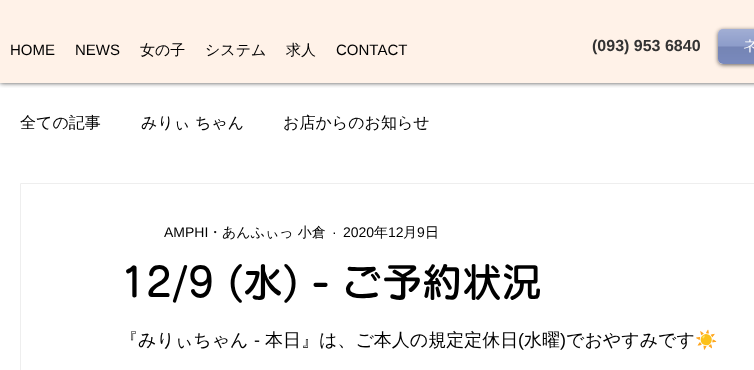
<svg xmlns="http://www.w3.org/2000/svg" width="754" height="370">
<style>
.a{font:15px Liberation Sans;fill:#000}
.b{font:500 15px WenQuanYi Zen Hei;fill:#000}
.c{font:bold 16px Liberation Sans;fill:#333}
.d{font:16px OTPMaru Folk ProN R;fill:#fff}
.e{font:500 16px WenQuanYi Zen Hei;fill:#000}
.f{font:14px Liberation Sans;fill:#000}
.g{font:500 14px WenQuanYi Zen Hei;fill:#000}
.h{font:600 40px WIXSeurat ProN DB;fill:#000}
.i{font:500 18px WenQuanYi Zen Hei;fill:#000}
.j{font:18px Liberation Sans;fill:#000}
.k{font:18px Noto Color Emoji;fill:#000}
</style>
<defs>
<clipPath id="clip1"><path d="M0 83h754v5H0z"/></clipPath>
<clipPath id="clip2"><path d="M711 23h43v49h-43zm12 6h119c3 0 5 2 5 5v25c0 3-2 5-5 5h-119c-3 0-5-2-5-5v-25c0-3 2-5 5-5z" clip-rule="evenodd"/></clipPath>
</defs>
<rect width="100%" height="100%" fill="#fff2e8"/>
<path fill="#fff" d="M0 83h754v287H0z"/>
<g clip-path="url(#clip1)">
<path fill="#000000b3" filter="blur(2.5px)" d="M0 0h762v83H0z"/>
</g>
<g clip-path="url(#clip2)">
<rect fill="#00000099" filter="blur(2px)" x="718" y="30" width="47" height="35" rx="5"/>
</g>
<rect fill="#536eb7bf" x="718" y="29" width="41" height="35" rx="5"/>
<image href="1.png" x="718" y="29" width="36" height="35"/>
<path fill="none" stroke="#eee" d="M20.5 183.5h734v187H20.5z"/>
<text class="a" x="10" y="55">HOME</text>
<text class="a" x="75" y="55">NEWS</text>
<text class="b" x="140" y="55">女の子</text>
<text class="b" x="205" y="55">システム</text>
<text class="b" x="286" y="55">求人</text>
<text class="a" x="336" y="55">CONTACT</text>
<text class="c" x="592" y="51">(093) 953 6840</text>
<text class="d" x="742" y="52">ネ</text>
<text class="e" x="20" y="128">全ての記事</text>
<text class="e" x="141" y="128">みりぃ ちゃん</text>
<text class="e" x="283" y="128">お店からのお知らせ</text>
<text class="f" x="164" y="237">AMPHI</text>
<text class="g" x="208" y="237">・あんふぃっ 小倉</text>
<text class="f" x="332" y="237">·</text>
<text class="f" x="343" y="237">2020</text>
<text class="g" x="374" y="237">年</text>
<text class="f" x="388" y="237">12</text>
<text class="g" x="403" y="237">月</text>
<text class="f" x="417" y="237">9</text>
<text class="g" x="425" y="237">日</text>
<text class="h" x="120" y="297">12/9 (水) - ご予約状況</text>
<text class="i" x="120" y="346">『みりぃちゃん</text>
<text class="j" x="254" y="346">-</text>
<text class="i" x="265" y="346">本日』は、ご本人の規定定休日</text>
<text class="j" x="518" y="346">(</text>
<text class="i" x="524" y="346">水曜</text>
<text class="j" x="560" y="346">)</text>
<text class="i" x="566" y="346">でおやすみです</text>
<text class="k" x="695" y="346">☀️</text>
</svg>
